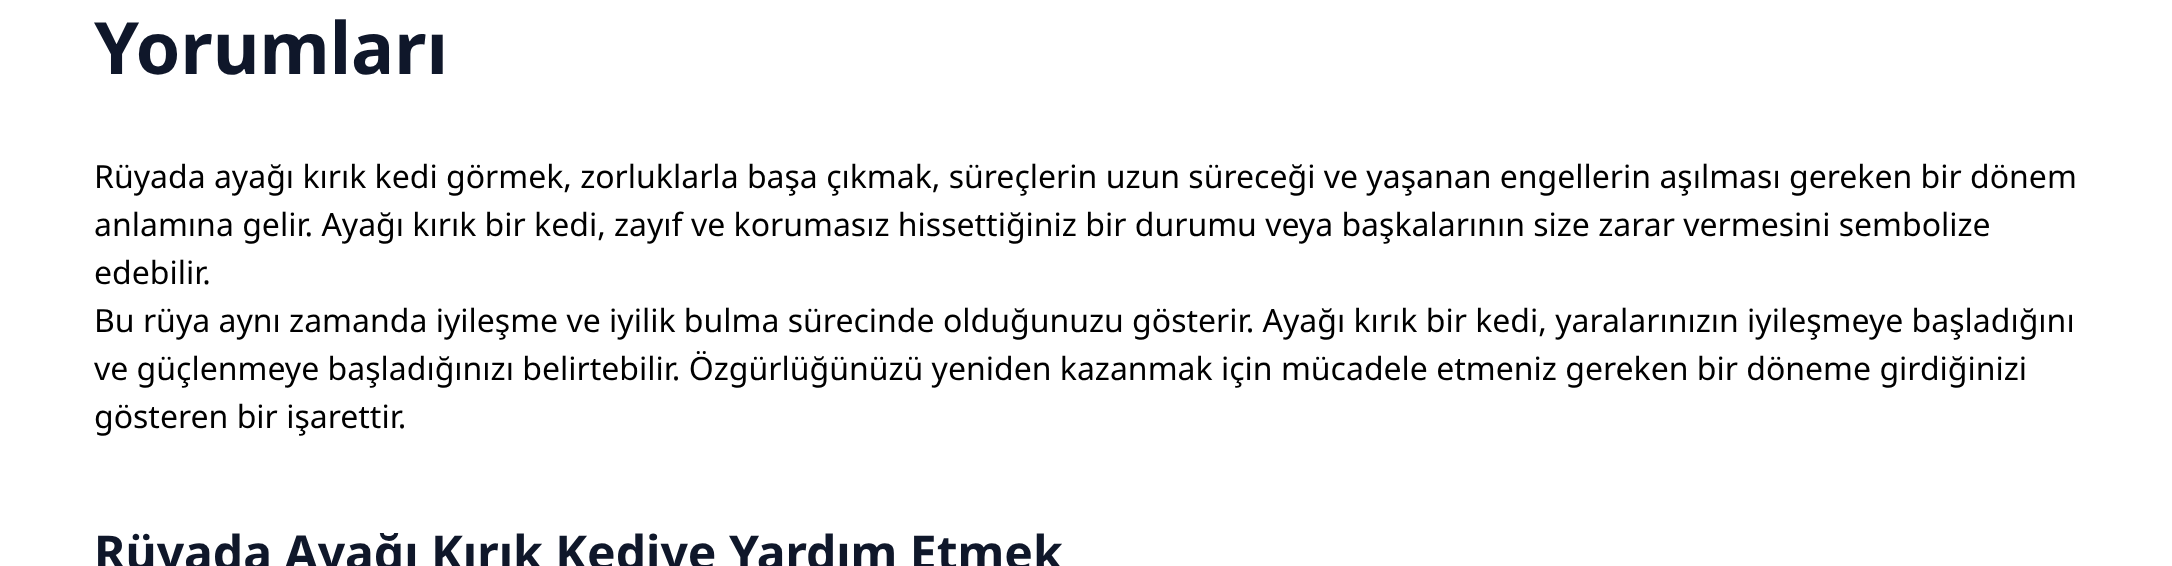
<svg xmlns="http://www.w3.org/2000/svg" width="2172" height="566">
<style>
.a{font:bold 72px Noto Sans;fill:#0f172a}
.b{font:32px Noto Sans;fill:#000}
.c{font:bold 48px Noto Sans;fill:#0f172a}
</style>
<rect width="100%" height="100%" fill="#fff"/>
<text class="a" x="94" y="74">Yorumları</text>
<text class="b" x="94" y="188">Rüyada ayağı kırık kedi görmek, zorluklarla başa çıkmak, süreçlerin uzun süreceği ve yaşanan engellerin aşılması gereken bir dönem</text>
<text class="b" x="94" y="236">anlamına gelir. Ayağı kırık bir kedi, zayıf ve korumasız hissettiğiniz bir durumu veya başkalarının size zarar vermesini sembolize</text>
<text class="b" x="94" y="284">edebilir.</text>
<text class="b" x="94" y="332">Bu rüya aynı zamanda iyileşme ve iyilik bulma sürecinde olduğunuzu gösterir. Ayağı kırık bir kedi, yaralarınızın iyileşmeye başladığını</text>
<text class="b" x="94" y="380">ve güçlenmeye başladığınızı belirtebilir. Özgürlüğünüzü yeniden kazanmak için mücadele etmeniz gereken bir döneme girdiğinizi</text>
<text class="b" x="94" y="428">gösteren bir işarettir.</text>
<text class="c" x="94" y="570">Rüyada Ayağı Kırık Kediye Yardım Etmek</text>
</svg>
